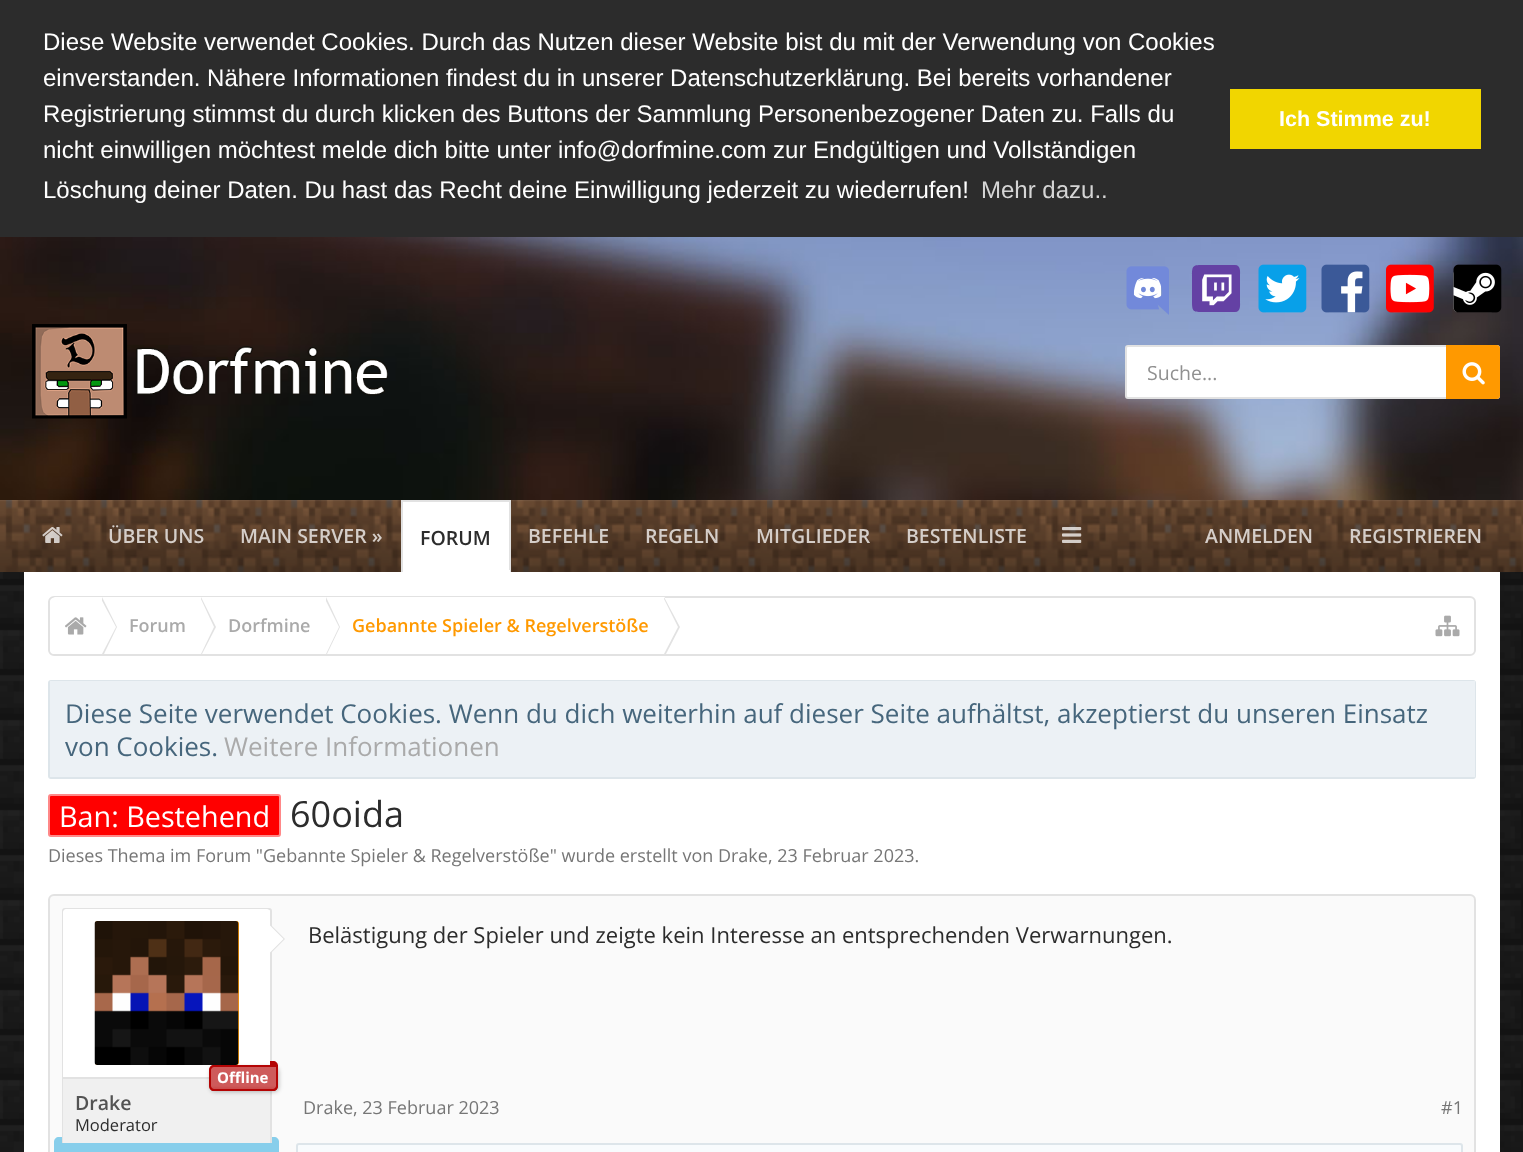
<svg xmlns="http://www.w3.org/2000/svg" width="1523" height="1152">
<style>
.a{font:24px Liberation Sans;fill:#fff}
.b{font:24px Liberation Sans;fill:#d5d5d5}
.c{font:bold 21.5px Liberation Sans;fill:#fff}
.d{font:19.5px Open Sans;fill:#909090}
.e{font:600 19.5px Open Sans;fill:#d5cec9}
.f{font:600 19.5px Open Sans;fill:#2c2c2c}
.g{font:600 18px Open Sans;fill:#aaa}
.h{font:600 18px Open Sans;fill:#f90}
.i{font:26px Open Sans;fill:#46667c}
.j{font:26px Open Sans;fill:#aaa}
.k{font:28.75px Open Sans;fill:#fff}
.l{font:36px Open Sans;fill:#2c2c2c}
.m{font:18px Open Sans;fill:#767676}
.n{font:bold 15px Open Sans;fill:#fff}
.o{font:600 19.5px Open Sans;fill:#535353}
.p{font:16.5px Open Sans;fill:#2c2c2c}
.q{font:22px Open Sans;fill:#2c2c2c}
</style>
<defs>
<clipPath id="clip1"><rect x="50" y="597" width="1425" height="57" rx="5"/></clipPath>
</defs>
<rect width="100%" height="100%" fill="#fff"/>
<image href="1.png" x="0" y="572" width="1523" height="580"/>
<path fill="#2c2c2c" d="M0 0h1523v237H0z"/>
<path fill="#f1d600" d="M1230 89h251v60H1230z"/>
<image href="2.png" x="0" y="237" width="1523" height="263"/>
<path fill="#fff" d="M1134 278h27v27H1134z"/>
<image href="3.png" x="1126" y="266" width="43" height="49"/>
<path fill="#6441a4" d="M1235 265h-31c-11 0-12 0-12 11v25c0 11 1 11 12 11h31c6 0 5-7 5-11v-25c0-4 1-11-5-11z"/>
<image href="4.png" x="1202" y="274" width="30" height="32"/>
<image href="6.png" x="1265" y="274" width="35" height="39"/>
<image href="5.png" x="1258" y="264" width="49" height="49"/>
<image href="8.png" x="1329" y="271" width="34" height="42"/>
<image href="7.png" x="1321" y="264" width="49" height="49"/>
<image href="10.png" x="1390" y="274" width="40" height="39"/>
<image href="9.png" x="1386" y="264" width="48" height="49"/>
<image href="12.png" x="1453" y="272" width="42" height="41"/>
<image href="11.png" x="1453" y="264" width="49" height="49"/>
<image href="13.png" x="32" y="324" width="356" height="95"/>
<rect fill="#fff" stroke="#e2e2e2" stroke-width="2" x="1126" y="346" width="373" height="52" rx="2"/>
<path fill="#f90" d="M1446 345h51c1.5 0 3 1.5 3 3v48c0 1.5-1.5 3-3 3h-51z"/>
<image href="14.png" x="1462" y="362" width="23" height="23"/>
<image href="15.png" x="0" y="500" width="1523" height="72"/>
<image href="16.png" x="42" y="527" width="21" height="16"/>
<path fill="#fff" d="M403 502h106v68H403z"/>
<path fill="#e2e2e2" d="M401 500h109v2H401z"/>
<path fill="#e2e2e2" d="M509 500h2v72H509z"/>
<path fill="#fff" d="M401 570h109v2H401z"/>
<path fill="#e2e2e2" d="M401 500h2v72H401z"/>
<image href="17.png" x="1062" y="527" width="20" height="16"/>
<path fill="#fff" d="M24 572h1476v580H24z"/>
<rect fill="none" stroke="#e2e2e2" stroke-width="2" x="49" y="597" width="1426" height="58" rx="5"/>
<g clip-path="url(#clip1)">
<path fill="#fff" d="M56 597h46v59h-46c-3.5 0-6-2.5-6-6v-47c0-3.5 2.5-6 6-6z"/>
</g>
<image href="18.png" x="65" y="617" width="22" height="18"/>
<path fill="#fff" d="M102 597h563v1H102z"/>
<path fill="#e2e2e2" d="M104 654h-2v-57l15 30z"/>
<path fill="#fff" d="M102 654h-2v-57l16 30z"/>
<path fill="#e2e2e2" d="M202 654h-1v-57l15 30z"/>
<path fill="#fff" d="M201 654h-1v-57l14 30z"/>
<path fill="#e2e2e2" d="M327 654h-1v-57l14 30z"/>
<path fill="#fff" d="M326 654h-2v-57l15 30z"/>
<path fill="#e2e2e2" d="M666 654h-2v-57l16 30z"/>
<path fill="#fff" d="M664 654h-1v-57l15 30z"/>
<image href="19.png" x="1435" y="615" width="25" height="22"/>
<rect fill="none" stroke="#dde5ea" stroke-width="2" x="49" y="681" width="1426" height="97" rx="2"/>
<path fill="#ecf1f5" d="M50 681h1425v96H50z"/>
<rect fill="#f00" stroke="#f88" stroke-width="2" x="49" y="795" width="231" height="41" rx="2"/>
<rect fill="#fafafa" stroke="#e2e2e2" stroke-width="2" x="49" y="895" width="1426" height="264" rx="5"/>
<rect fill="#fff" stroke="#e2e2e2" stroke-width="2" x="63" y="909" width="208" height="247" rx="2"/>
<path fill="#fff" d="M66 909h201c1.5 0 3 1.5 3 3v165h-207v-165c0-1.5 1.5-3 3-3z"/>
<rect fill="#f90" x="95" y="921" width="144" height="144" rx="3"/>
<image href="20.png" x="94" y="921" width="145" height="144"/>
<path fill="#e2e2e2" d="M270 954v-30l15 15z"/>
<path fill="#fff" d="M268.5 954v-30l15 15z"/>
<path fill="#f0f0f0" d="M63 1079h207v64H63z"/>
<path fill="#e2e2e2" d="M63 1077h146v2H63z"/>
<rect fill="#00000040" filter="blur(2px)" x="210" y="1067" width="69" height="25" rx="5"/>
<path fill="#b40404" d="M214 1065h64v21c0 3-2 5-5 5h-59c-3 0-5-2-5-5v-16c0-3 2-5 5-5z"/>
<image href="21.png" x="209" y="1066" width="69" height="25"/>
<path fill="none" stroke="#b40404" stroke-width="2" d="M214 1066h63v20c0 2-2 4-4 4h-59c-2 0-4-2-4-4v-16c0-2 2-4 4-4z"/>
<path fill="#b40404" d="M270 1061h3c3 0 5 2 5 5v1h-8z"/>
<path fill="#87ceeb" d="M54 1143h225v9H54z"/>
<path fill="#87ceeb" d="M59 1137h3v6h-8v-1c0-3 2-5 5-5z"/>
<path fill="#87ceeb" d="M272 1137h2c3 0 5 2 5 5v1h-7z"/>
<rect fill="#f8fbfd" stroke="#dde5ea" stroke-width="2" x="297" y="1144" width="1165" height="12" rx="2"/>
<text class="a" x="43" y="50">Diese Website verwendet Cookies. Durch das Nutzen dieser Website bist du mit der Verwendung von Cookies</text>
<text class="a" x="43" y="86">einverstanden. Nähere Informationen findest du in unserer Datenschutzerklärung. Bei bereits vorhandener</text>
<text class="a" x="43" y="122">Registrierung stimmst du durch klicken des Buttons der Sammlung Personenbezogener Daten zu. Falls du</text>
<text class="a" x="43" y="158">nicht einwilligen möchtest melde dich bitte unter info@dorfmine.com zur Endgültigen und Vollständigen</text>
<text class="a" x="43" y="198">Löschung deiner Daten. Du hast das Recht deine Einwilligung jederzeit zu wiederrufen!</text>
<text class="b" x="981" y="198">Mehr dazu..</text>
<text class="c" x="1279" y="126">Ich Stimme zu!</text>
<text class="d" x="1147" y="380">Suche...</text>
<text class="e" x="108" y="543">ÜBER UNS</text>
<text class="e" x="240" y="543">MAIN SERVER »</text>
<text class="f" x="420" y="545">FORUM</text>
<text class="e" x="528" y="543">BEFEHLE</text>
<text class="e" x="645" y="543">REGELN</text>
<text class="e" x="756" y="543">MITGLIEDER</text>
<text class="e" x="906" y="543">BESTENLISTE</text>
<text class="e" x="1205" y="543">ANMELDEN</text>
<text class="e" x="1349" y="543">REGISTRIEREN</text>
<text class="g" x="129" y="632">Forum</text>
<text class="g" x="228" y="632">Dorfmine</text>
<text class="h" x="352" y="632">Gebannte Spieler &amp; Regelverstöße</text>
<text class="i" x="65" y="723">Diese Seite verwendet Cookies. Wenn du dich weiterhin auf dieser Seite aufhältst, akzeptierst du unseren Einsatz</text>
<text class="i" x="65" y="756">von Cookies.</text>
<text class="j" x="224" y="756">Weitere Informationen</text>
<text class="k" x="59" y="827">Ban: Bestehend</text>
<text class="l" x="290" y="827">60oida</text>
<text class="m" x="48" y="862">Dieses Thema im Forum "Gebannte Spieler &amp; Regelverstöße" wurde erstellt von Drake, 23 Februar 2023.</text>
<text class="n" x="217" y="1083">Offline</text>
<text class="o" x="75" y="1110">Drake</text>
<text class="p" x="75" y="1131">Moderator</text>
<text class="q" x="308" y="943">Belästigung der Spieler und zeigte kein Interesse an entsprechenden Verwarnungen.</text>
<text class="m" x="303" y="1114">Drake, 23 Februar 2023</text>
<text class="m" x="1441" y="1114">#1</text>
</svg>
